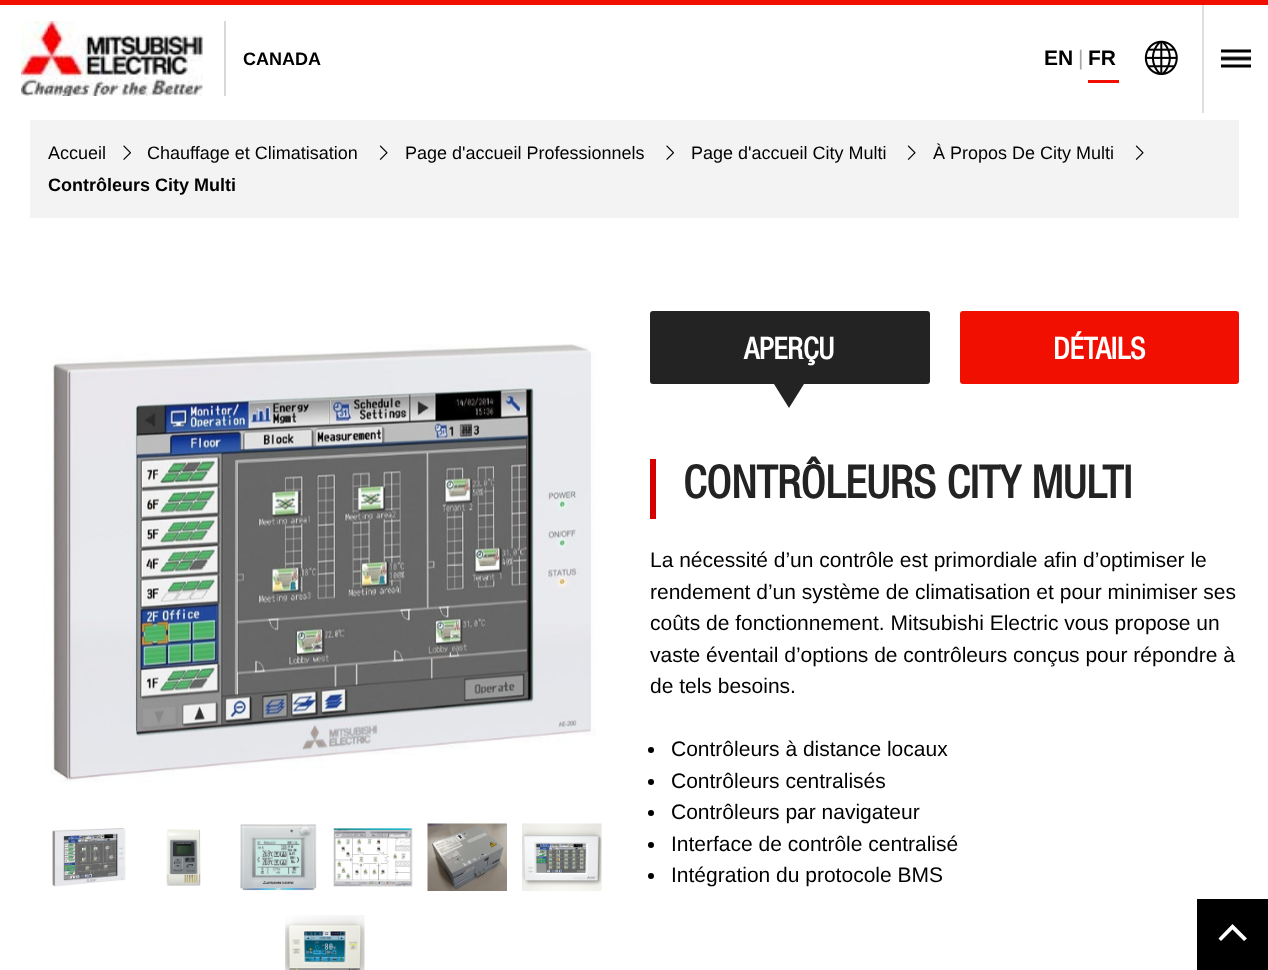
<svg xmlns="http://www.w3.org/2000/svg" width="1268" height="970">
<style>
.a{font:bold 18px Liberation Sans;fill:#000}
.b{font:bold 21px Liberation Sans;fill:#000}
.c{font:21px Liberation Sans;fill:#a6a6a6}
.d{font:18px Liberation Sans;fill:#000}
.e{font:bold 30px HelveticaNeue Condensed;fill:#fff}
.f{font:bold 45px HelveticaNeue Condensed;fill:#232323}
.g{font:21px Liberation Sans;fill:#000}
</style>
<rect width="100%" height="100%" fill="#fff"/>
<path fill="#f00f00" d="M0 0h1268v5H0z"/>
<path fill="#d9d9d9" d="M224 21h2v75H224z"/>
<image href="1.png" x="21" y="21" width="182" height="75"/>
<path fill="#f00f00" d="M1088 80h31v3H1088z"/>
<image href="2.png" x="1144" y="40" width="34" height="36"/>
<path fill="#dedede" d="M1202 5h2v108H1202z"/>
<image href="3.png" x="1221" y="49" width="30" height="19"/>
<path fill="#f3f3f3" d="M30 120h1209v98H30z"/>
<image href="4.png" x="123" y="145" width="8" height="15"/>
<image href="5.png" x="379" y="145" width="9" height="15"/>
<image href="4.png" x="666" y="145" width="8" height="15"/>
<image href="5.png" x="907" y="145" width="9" height="15"/>
<image href="5.png" x="1135" y="145" width="9" height="15"/>
<image href="6.png" x="30" y="344" width="566" height="466"/>
<image href="7.png" x="52" y="828" width="74" height="59"/>
<image href="8.png" x="166" y="829" width="35" height="57"/>
<image href="9.png" x="240" y="824" width="77" height="67"/>
<image href="10.png" x="333" y="828" width="80" height="59"/>
<image href="11.png" x="427" y="823" width="80" height="68"/>
<image href="12.png" x="522" y="823" width="80" height="68"/>
<image href="13.png" x="285" y="915" width="80" height="55"/>
<rect fill="#232323" x="650" y="311" width="280" height="73" rx="3"/>
<path fill="#232323" d="M774 384h30l-15 24z"/>
<rect fill="#f00f00" x="960" y="311" width="279" height="73" rx="3"/>
<path fill="#d40000" d="M650 459h6v60H650z"/>
<circle fill="#000" cx="651" cy="750" r="3"/>
<circle fill="#000" cx="651" cy="782" r="3"/>
<circle fill="#000" cx="651" cy="813" r="3"/>
<circle fill="#000" cx="651" cy="845" r="3"/>
<circle fill="#000" cx="651" cy="876" r="3"/>
<path fill="#000" d="M1197 899h71v71H1197z"/>
<path fill="#fff" d="M1244 941l3-2.5l-14.5-14.5l-14 14.5l2.5 2.5l11.5-11.5z"/>
<text class="a" x="243" y="65">CANADA</text>
<text class="b" x="1044" y="65">EN</text>
<text class="c" x="1078" y="65">|</text>
<text class="b" x="1088" y="65">FR</text>
<text class="d" x="48" y="159">Accueil</text>
<text class="d" x="147" y="159">Chauffage et Climatisation</text>
<text class="d" x="405" y="159">Page d'accueil Professionnels</text>
<text class="d" x="691" y="159">Page d'accueil City Multi</text>
<text class="d" x="933" y="159">À Propos De City Multi</text>
<text class="a" x="48" y="191">Contrôleurs City Multi</text>
<text class="e" x="744" y="359">APERÇU</text>
<text class="e" x="1053" y="359">DÉTAILS</text>
<text class="f" x="683" y="498">CONTRÔLEURS CITY MULTI</text>
<text class="g" x="650" y="567">La nécessité d’un contrôle est primordiale afin d’optimiser le</text>
<text class="g" x="650" y="599">rendement d’un système de climatisation et pour minimiser ses</text>
<text class="g" x="650" y="630">coûts de fonctionnement. Mitsubishi Electric vous propose un</text>
<text class="g" x="650" y="662">vaste éventail d’options de contrôleurs conçus pour répondre à</text>
<text class="g" x="650" y="693">de tels besoins.</text>
<text class="g" x="671" y="756">Contrôleurs à distance locaux</text>
<text class="g" x="671" y="788">Contrôleurs centralisés</text>
<text class="g" x="671" y="819">Contrôleurs par navigateur</text>
<text class="g" x="671" y="851">Interface de contrôle centralisé</text>
<text class="g" x="671" y="882">Intégration du protocole BMS</text>
</svg>
